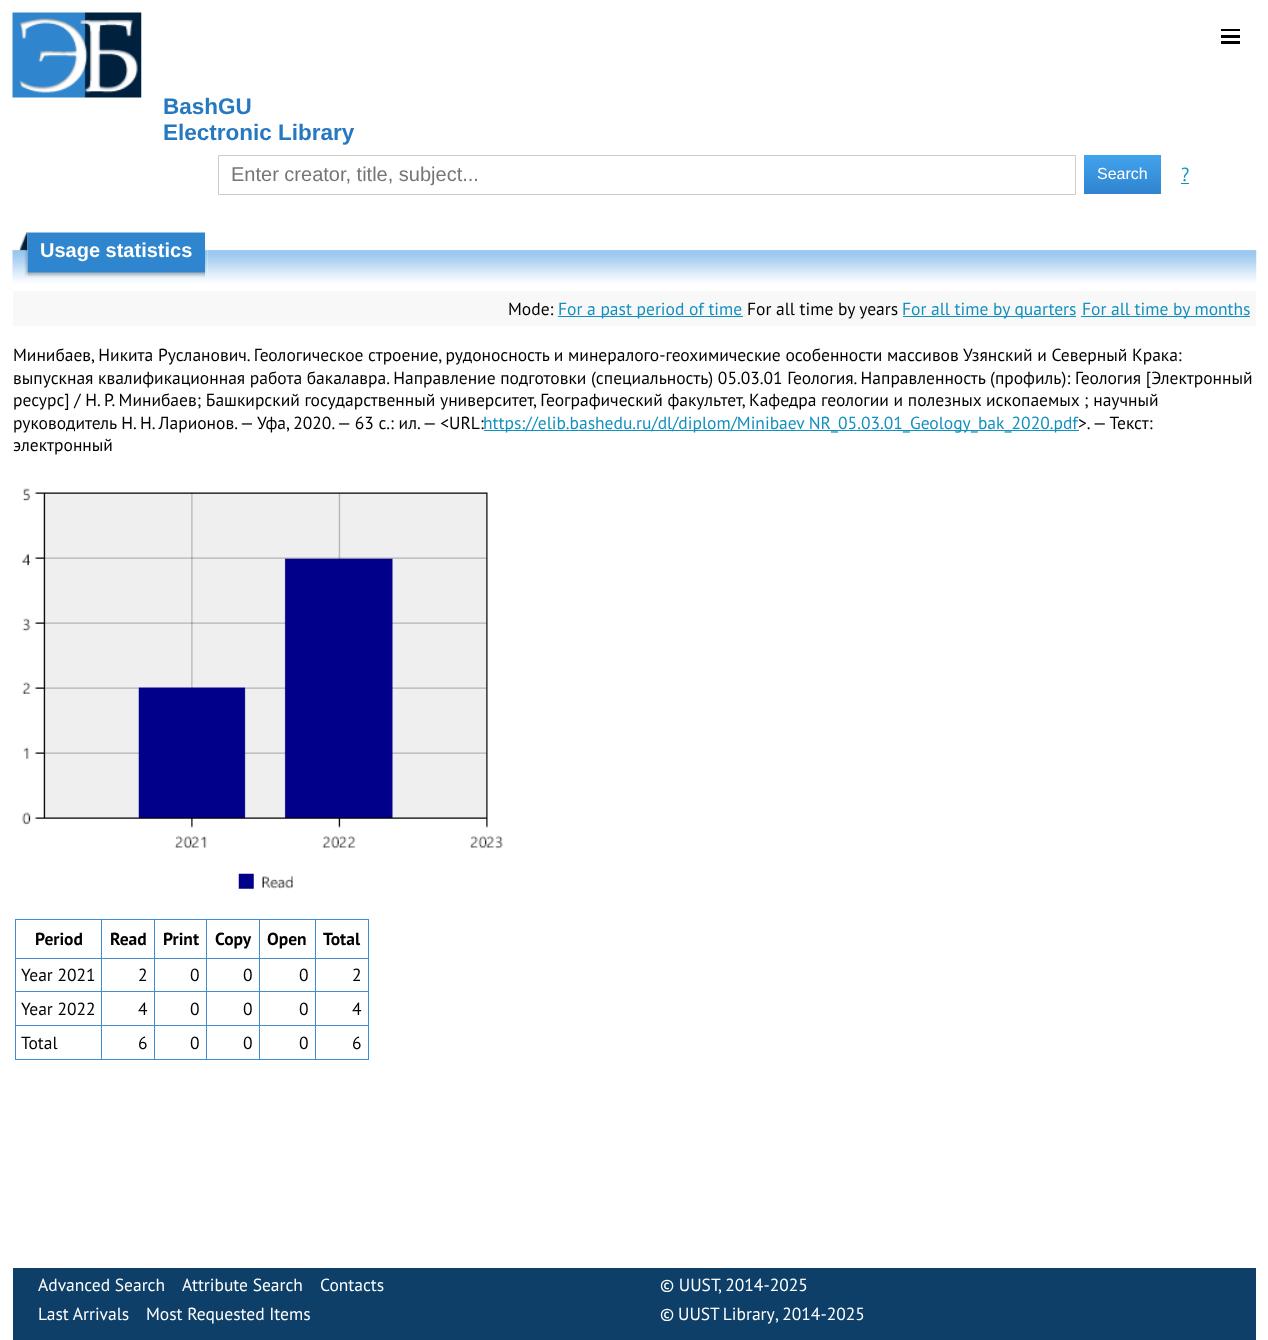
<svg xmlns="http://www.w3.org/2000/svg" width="1268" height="1340">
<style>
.a{font:bold 22.5px Liberation Sans;fill:#2679c0}
.b{font:20px Liberation Sans;fill:#757575}
.c{font:16px Liberation Sans;fill:#fff}
.d{font:19px PT Sans;fill:#1390be}
.e{font:bold 20px Liberation Sans;fill:#fff}
.f{font:17.5px PT Sans;fill:#000}
.g{font:17.5px PT Sans;fill:#1390be}
.h{font:bold 17.5px PT Sans;fill:#000}
.i{font:17.5px PT Sans;fill:#fff}
</style>
<defs>
<linearGradient id="g1" gradientUnits="userSpaceOnUse" x1="1123" y1="155" x2="1123" y2="194"><stop offset="0" stop-color="#42a3ed"/><stop offset="1" stop-color="#3084ce"/></linearGradient>
</defs>
<rect width="100%" height="100%" fill="#fff"/>
<image href="1.png" x="12" y="12" width="130" height="86"/>
<path fill="#000" d="M1221 29h19v2H1221z"/>
<path fill="#000" d="M1221 35h19v3H1221z"/>
<path fill="#000" d="M1221 41h19v3H1221z"/>
<path fill="none" stroke="#ccc" d="M218.5 155.5h857v39H218.5z"/>
<path fill="url(#g1)" d="M1084 155h77v39H1084z"/>
<path fill="#1390be" d="M1181 183h8v1H1181z"/>
<image href="2.png" x="12" y="232" width="16" height="52"/>
<image href="3.png" x="27" y="232" width="178" height="52"/>
<image href="4.png" x="205" y="235" width="3" height="49"/>
<image href="5.png" x="207" y="249" width="1050" height="35"/>
<path fill="#f8f8f8" d="M13 291h1243v35H13z"/>
<path fill="#1390be" d="M558 316h185v1H558z"/>
<path fill="#1390be" d="M903 316h173v1H903z"/>
<path fill="#1390be" d="M1081 316h169v1H1081z"/>
<path fill="#1390be" d="M484 430h595v1H484z"/>
<image href="6.png" x="22" y="488" width="481" height="401"/>
<path fill="#3e8ed1" d="M15 919h354v1H15z"/>
<path fill="#3e8ed1" d="M368 919h1v141H368z"/>
<path fill="#3e8ed1" d="M15 1059h354v1H15z"/>
<path fill="#3e8ed1" d="M15 919h1v141H15z"/>
<path fill="#3e8ed1" d="M315 958h54v1H315z"/>
<path fill="#3e8ed1" d="M315 991h54v1H315z"/>
<path fill="#3e8ed1" d="M315 1025h54v1H315z"/>
<path fill="#3e8ed1" d="M315 1025h1v35H315z"/>
<path fill="#3e8ed1" d="M259 1025h57v1H259z"/>
<path fill="#3e8ed1" d="M315 991h1v35H315z"/>
<path fill="#3e8ed1" d="M259 991h57v1H259z"/>
<path fill="#3e8ed1" d="M315 958h1v35H315z"/>
<path fill="#3e8ed1" d="M259 958h57v1H259z"/>
<path fill="#3e8ed1" d="M259 1025h1v35H259z"/>
<path fill="#3e8ed1" d="M206 1025h54v1H206z"/>
<path fill="#3e8ed1" d="M259 991h1v35H259z"/>
<path fill="#3e8ed1" d="M206 991h54v1H206z"/>
<path fill="#3e8ed1" d="M259 958h1v35H259z"/>
<path fill="#3e8ed1" d="M206 958h54v1H206z"/>
<path fill="#3e8ed1" d="M206 1025h1v35H206z"/>
<path fill="#3e8ed1" d="M154 1025h54v1H154z"/>
<path fill="#3e8ed1" d="M206 991h1v35H206z"/>
<path fill="#3e8ed1" d="M154 991h54v1H154z"/>
<path fill="#3e8ed1" d="M206 958h1v35H206z"/>
<path fill="#3e8ed1" d="M154 958h54v1H154z"/>
<path fill="#3e8ed1" d="M154 1025h1v35H154z"/>
<path fill="#3e8ed1" d="M101 1025h54v1H101z"/>
<path fill="#3e8ed1" d="M154 991h1v35H154z"/>
<path fill="#3e8ed1" d="M101 991h54v1H101z"/>
<path fill="#3e8ed1" d="M154 958h1v35H154z"/>
<path fill="#3e8ed1" d="M101 958h54v1H101z"/>
<path fill="#3e8ed1" d="M101 1025h1v35H101z"/>
<path fill="#3e8ed1" d="M15 1025h88v1H15z"/>
<path fill="#3e8ed1" d="M101 991h1v35H101z"/>
<path fill="#3e8ed1" d="M15 991h88v1H15z"/>
<path fill="#3e8ed1" d="M101 958h1v35H101z"/>
<path fill="#3e8ed1" d="M15 958h88v1H15z"/>
<path fill="#3e8ed1" d="M101 919h1v40H101z"/>
<path fill="#3e8ed1" d="M154 919h1v40H154z"/>
<path fill="#3e8ed1" d="M206 919h1v40H206z"/>
<path fill="#3e8ed1" d="M259 919h1v40H259z"/>
<path fill="#3e8ed1" d="M315 919h1v40H315z"/>
<path fill="#0e3f68" d="M13 1268h1243v72H13z"/>
<text class="a" x="163" y="114">BashGU</text>
<text class="a" x="163" y="140">Electronic Library</text>
<text class="b" x="231" y="181">Enter creator, title, subject...</text>
<text class="c" x="1097" y="179">Search</text>
<text class="d" x="1181" y="181">?</text>
<text class="e" x="40" y="257">Usage statistics</text>
<text class="f" x="508" y="315">Mode:</text>
<text class="g" x="558" y="315">For a past period of time</text>
<text class="f" x="747" y="315">For all time by years</text>
<text class="g" x="902" y="315">For all time by quarters</text>
<text class="g" x="1082" y="315">For all time by months</text>
<text class="f" x="13" y="361">Минибаев, Никита Русланович. Геологическое строение, рудоносность и минералого-геохимические особенности массивов Узянский и Северный Крака:</text>
<text class="f" x="13" y="384">выпускная квалификационная работа бакалавра. Направление подготовки (специальность) 05.03.01 Геология. Направленность (профиль): Геология [Электронный</text>
<text class="f" x="13" y="406">ресурс] / Н. Р. Минибаев; Башкирский государственный университет, Географический факультет, Кафедра геологии и полезных ископаемых ; научный</text>
<text class="f" x="13" y="429">руководитель Н. Н. Ларионов. — Уфа, 2020. — 63 с.: ил. — &lt;URL:</text>
<text class="g" x="483" y="429">https://elib.bashedu.ru/dl/diplom/Minibaev NR_05.03.01_Geology_bak_2020.pdf</text>
<text class="f" x="1078" y="429">&gt;. — Текст:</text>
<text class="f" x="13" y="451">электронный</text>
<text class="h" x="35" y="945">Period</text>
<text class="h" x="110" y="945">Read</text>
<text class="h" x="163" y="945">Print</text>
<text class="h" x="215" y="945">Copy</text>
<text class="h" x="267" y="945">Open</text>
<text class="h" x="323" y="945">Total</text>
<text class="f" x="21" y="981">Year 2021</text>
<text class="f" x="138" y="981">2</text>
<text class="f" x="190" y="981">0</text>
<text class="f" x="243" y="981">0</text>
<text class="f" x="299" y="981">0</text>
<text class="f" x="352" y="981">2</text>
<text class="f" x="21" y="1015">Year 2022</text>
<text class="f" x="138" y="1015">4</text>
<text class="f" x="190" y="1015">0</text>
<text class="f" x="243" y="1015">0</text>
<text class="f" x="299" y="1015">0</text>
<text class="f" x="352" y="1015">4</text>
<text class="f" x="21" y="1049">Total</text>
<text class="f" x="138" y="1049">6</text>
<text class="f" x="190" y="1049">0</text>
<text class="f" x="243" y="1049">0</text>
<text class="f" x="299" y="1049">0</text>
<text class="f" x="352" y="1049">6</text>
<text class="i" x="38" y="1291">Advanced Search</text>
<text class="i" x="182" y="1291">Attribute Search</text>
<text class="i" x="320" y="1291">Contacts</text>
<text class="i" x="38" y="1320">Last Arrivals</text>
<text class="i" x="146" y="1320">Most Requested Items</text>
<text class="i" x="660" y="1291">© UUST</text>
<text class="i" x="718" y="1291">, 2014-2025</text>
<text class="i" x="660" y="1320">©</text>
<text class="i" x="678" y="1320" word-spacing="-1">UUST Library</text>
<text class="i" x="775" y="1320">, 2014-2025</text>
</svg>
